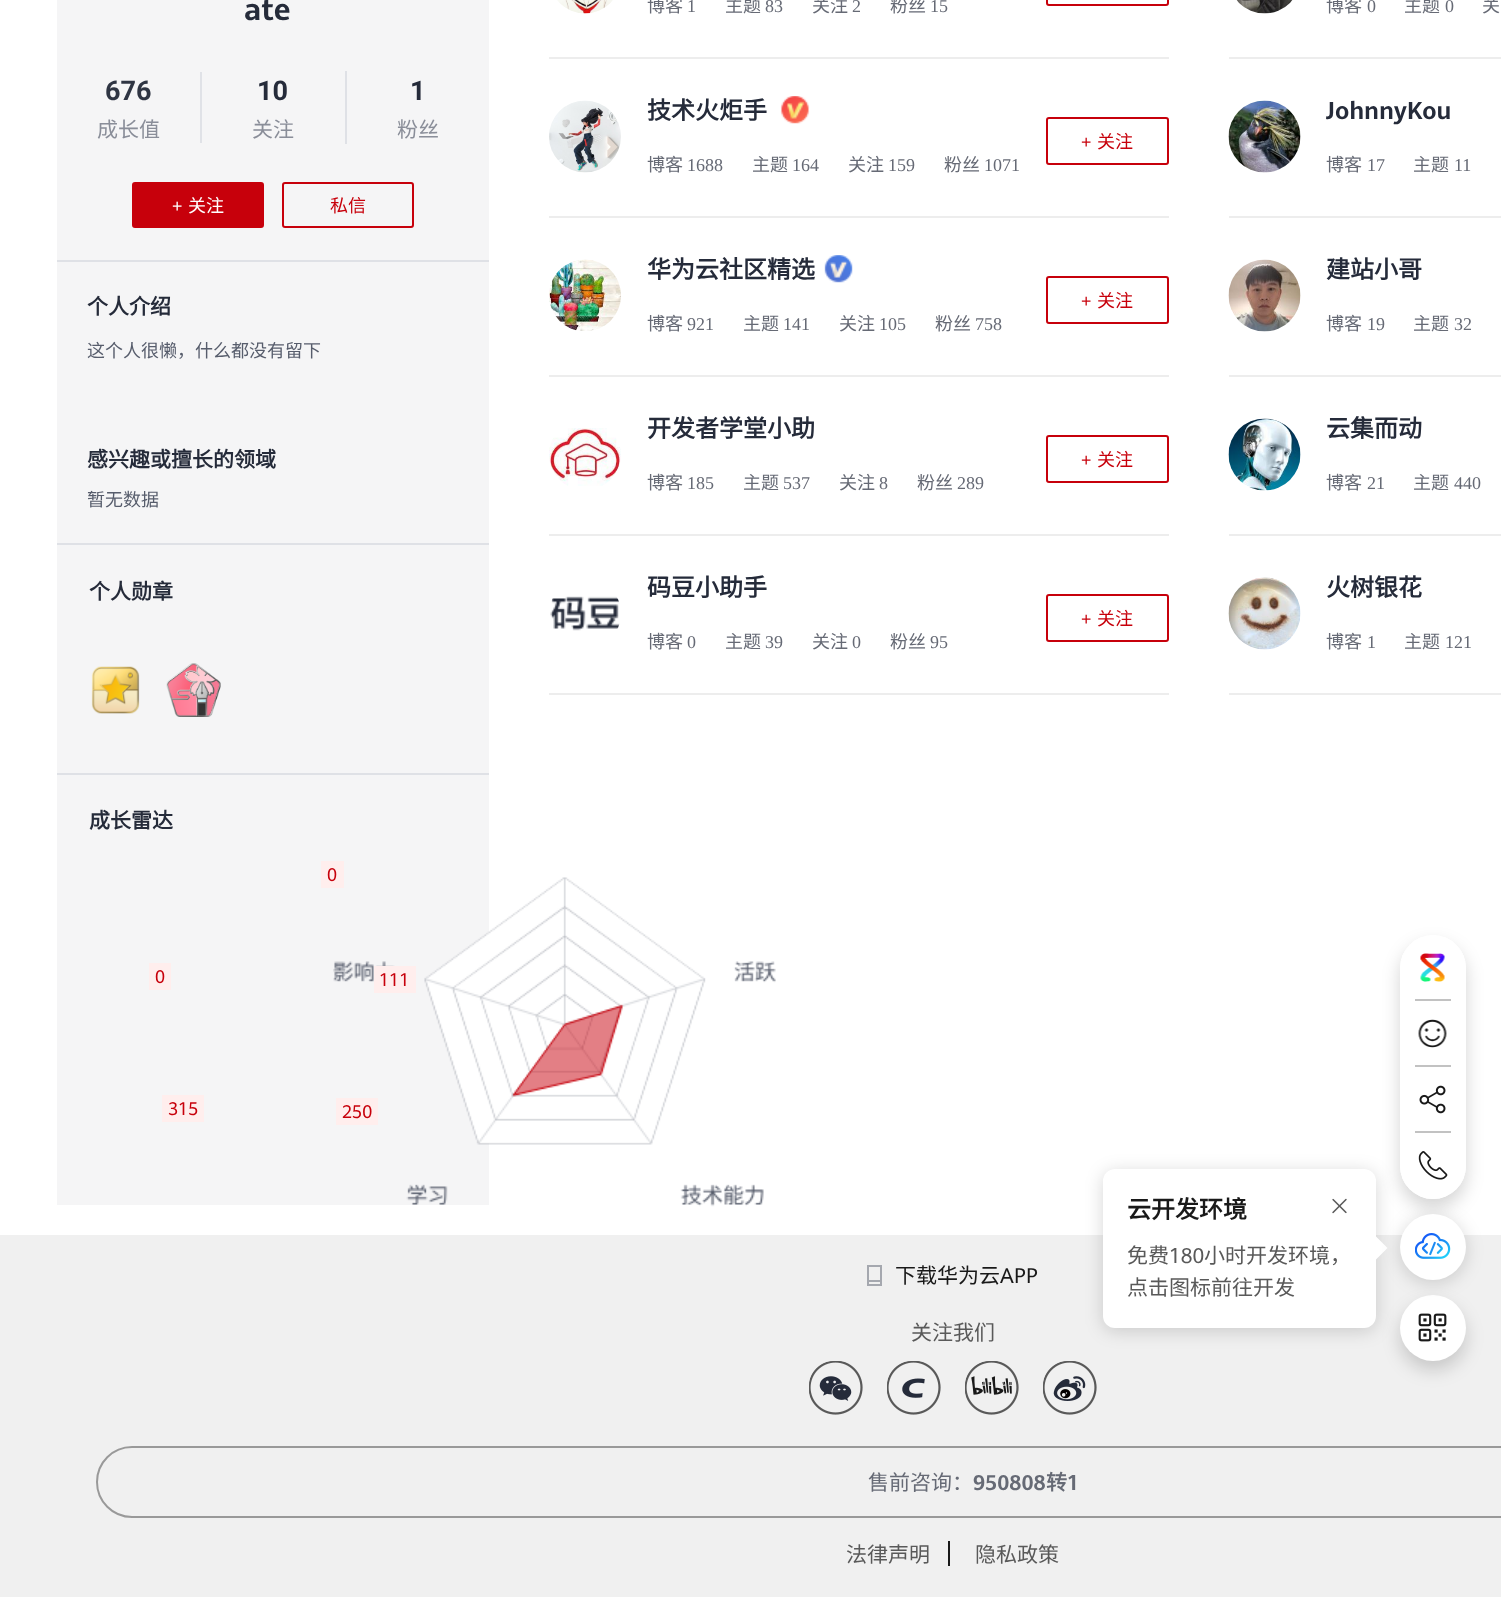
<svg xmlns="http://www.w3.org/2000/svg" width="1501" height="1597">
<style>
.a{font:bold 30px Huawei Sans;fill:#252b3a}
.b{font:bold 27px Roboto;fill:#2f3543}
.c{font:21px Noto Sans CJK SC;fill:#8a8e99}
.d{font:bold 27px Roboto;fill:#252b3a}
.e{font:18px Huawei Sans;fill:#fff}
.f{font:18px Noto Sans CJK SC;fill:#fff}
.g{font:18px Noto Sans CJK SC;fill:#c7000b}
.h{font:bold 21px Noto Sans CJK SC;fill:#252b3a}
.i{font:18px Noto Sans CJK SC;fill:#575d6c}
.j{font:18px Huawei Sans;fill:#c7000b}
.k{font:18px Noto Sans CJK SC;fill:#666a75}
.l{font:18px Liberation Serif;fill:#666a75}
.m{font:bold 24px Noto Sans CJK SC;fill:#252b3a}
.n{font:bold 24px Huawei Sans;fill:#252b3a}
.o{font:bold 24px Noto Sans CJK SC;fill:#191919}
.p{font:21px Noto Sans CJK SC;fill:#595959}
.q{font:21px Huawei Sans;fill:#595959}
.r{font:21px Noto Sans CJK SC;fill:#191919}
.s{font:21px Huawei Sans;fill:#191919}
.t{font:21px Noto Sans CJK SC;fill:#666a75}
.u{font:bold 21px Huawei Sans;fill:#666a75}
.v{font:bold 21px Noto Sans CJK SC;fill:#666a75}
</style>
<rect width="100%" height="100%" fill="#fff"/>
<path fill="#f5f5f6" d="M57 0h432v1205H57z"/>
<path fill="#dfe1e6" d="M57 260h432v2H57z"/>
<path fill="#e0e2e7" d="M200 72h2v71H200z"/>
<path fill="#dfe1e6" d="M345 71h2v73H345z"/>
<rect fill="#c7000b" stroke="#c7000b" stroke-width="2" x="133" y="183" width="130" height="44" rx="2"/>
<rect fill="none" stroke="#c7000b" stroke-width="2" x="283" y="183" width="130" height="44" rx="2"/>
<path fill="#dfe1e6" d="M57 543h432v2H57z"/>
<path fill="#dfe1e6" d="M57 773h432v2H57z"/>
<image href="1.png" x="91" y="666" width="49" height="48"/>
<image href="2.png" x="166" y="663" width="55" height="54"/>
<image href="3.png" x="333" y="877" width="443" height="330"/>
<path fill="#ffeeed" d="M321 861h23v27H321z"/>
<path fill="#ffeeed" d="M149 963h22v27H149z"/>
<path fill="#ffeeed" d="M374 966h42v27H374z"/>
<path fill="#ffeeed" d="M162 1095h42v27H162z"/>
<path fill="#ffeeed" d="M336 1098h42v27H336z"/>
<path fill="#ededed" d="M549 57h620v2H549z"/>
<image href="4.png" x="557" y="0" width="56" height="14"/>
<rect fill="none" stroke="#c7000b" stroke-width="2" x="1047" y="-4" width="121" height="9" rx="2"/>
<path fill="#ededed" d="M1229 57h272v2H1229z"/>
<image href="5.png" x="1236" y="0" width="57" height="14"/>
<path fill="#ededed" d="M549 216h620v2H549z"/>
<image href="6.png" x="549" y="100" width="72" height="73"/>
<image href="7.png" x="780" y="96" width="30" height="28"/>
<rect fill="none" stroke="#c7000b" stroke-width="2" x="1047" y="118" width="121" height="46" rx="2"/>
<path fill="#ededed" d="M1229 216h272v2H1229z"/>
<image href="8.png" x="1228" y="100" width="73" height="73"/>
<path fill="#ededed" d="M549 375h620v2H549z"/>
<image href="9.png" x="549" y="259" width="72" height="72"/>
<image href="10.png" x="824" y="255" width="29" height="28"/>
<rect fill="none" stroke="#c7000b" stroke-width="2" x="1047" y="277" width="121" height="46" rx="2"/>
<path fill="#ededed" d="M1229 375h272v2H1229z"/>
<image href="11.png" x="1228" y="259" width="73" height="73"/>
<path fill="#ededed" d="M549 534h620v2H549z"/>
<image href="12.png" x="549" y="428" width="72" height="58"/>
<rect fill="none" stroke="#c7000b" stroke-width="2" x="1047" y="436" width="121" height="46" rx="2"/>
<path fill="#ededed" d="M1229 534h272v2H1229z"/>
<image href="13.png" x="1228" y="418" width="73" height="73"/>
<path fill="#ededed" d="M549 693h620v2H549z"/>
<image href="14.png" x="550" y="596" width="70" height="35"/>
<rect fill="none" stroke="#c7000b" stroke-width="2" x="1047" y="595" width="121" height="46" rx="2"/>
<path fill="#ededed" d="M1229 693h272v2H1229z"/>
<image href="15.png" x="1228" y="577" width="73" height="73"/>
<path fill="#f0f0f0" d="M0 1235h1501v362H0z"/>
<rect fill="#00000029" filter="blur(9px)" x="1103" y="1172" width="273" height="159" rx="12"/>
<rect fill="#fff" x="1103" y="1169" width="273" height="159" rx="12"/>
<image href="16.png" x="1332" y="1198" width="15" height="16"/>
<path fill="#fff" d="M1375.5 1260v-24l12 12z"/>
<rect fill="#0000002b" filter="blur(9px)" x="1400" y="944" width="66" height="264" rx="33"/>
<rect fill="#fff" x="1400" y="935" width="66" height="264" rx="33"/>
<circle fill="#fff" cx="1433" cy="1166" r="33"/>
<rect fill="#0000002b" filter="blur(9px)" x="1400" y="1304" width="66" height="66" rx="33"/>
<circle fill="#fff" cx="1433" cy="1328" r="33"/>
<rect fill="#00000029" filter="blur(9px)" x="1400" y="1217" width="66" height="66" rx="33"/>
<circle fill="#fff" cx="1433" cy="1247" r="33"/>
<image href="17.png" x="1415" y="1233" width="36" height="26"/>
<circle fill="#fff" cx="1433" cy="968" r="33"/>
<image href="18.png" x="1420" y="953" width="25" height="29"/>
<path fill="#c2c2c2" d="M1415 999h36v2H1415z"/>
<image href="19.png" x="1418" y="1019" width="29" height="29"/>
<path fill="#c2c2c2" d="M1415 1065h36v2H1415z"/>
<image href="20.png" x="1419" y="1085" width="27" height="29"/>
<path fill="#c2c2c2" d="M1415 1131h36v2H1415z"/>
<image href="21.png" x="1418" y="1151" width="30" height="29"/>
<image href="22.png" x="1418" y="1313" width="29" height="29"/>
<path fill="none" stroke="#a5a8af" stroke-width="2" d="M868 1266h13v19H868z"/>
<path fill="#a5a8af" d="M869 1280h12v2H869z"/>
<image href="23.png" x="809" y="1361" width="54" height="54"/>
<image href="24.png" x="887" y="1361" width="54" height="54"/>
<image href="25.png" x="965" y="1361" width="54" height="54"/>
<image href="26.png" x="1043" y="1361" width="54" height="54"/>
<rect fill="none" stroke="#999" stroke-width="2" x="97" y="1447" width="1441" height="70" rx="35"/>
<path fill="#191919" d="M948 1541h2v25H948z"/>
<text class="a" x="244" y="20">ate</text>
<text class="b" x="105" y="100">676</text>
<text class="c" x="97" y="137">成长值</text>
<text class="d" x="257" y="100">10</text>
<text class="c" x="252" y="137">关注</text>
<text class="d" x="410" y="100">1</text>
<text class="c" x="397" y="137">粉丝</text>
<text class="e" x="172" y="212">+</text>
<text class="f" x="188" y="212">关注</text>
<text class="g" x="330" y="212">私信</text>
<text class="h" x="87" y="314">个人介绍</text>
<text class="i" x="87" y="357">这个人很懒，什么都没有留下</text>
<text class="h" x="87" y="467">感兴趣或擅长的领域</text>
<text class="i" x="87" y="506">暂无数据</text>
<text class="h" x="89" y="599">个人勋章</text>
<text class="h" x="89" y="828">成长雷达</text>
<text class="j" x="327" y="881">0</text>
<text class="j" x="155" y="983">0</text>
<text class="j" x="379" y="986">111</text>
<text class="j" x="168" y="1115">315</text>
<text class="j" x="342" y="1118">250</text>
<text class="k" x="647" y="12">博客</text>
<text class="l" x="687" y="12">1</text>
<text class="k" x="725" y="12">主题</text>
<text class="l" x="765" y="12">83</text>
<text class="k" x="812" y="12">关注</text>
<text class="l" x="852" y="12">2</text>
<text class="k" x="890" y="12">粉丝</text>
<text class="l" x="930" y="12">15</text>
<text class="k" x="1326" y="12">博客</text>
<text class="l" x="1367" y="12">0</text>
<text class="k" x="1404" y="12">主题</text>
<text class="l" x="1445" y="12">0</text>
<text class="k" x="1482" y="12">关</text>
<text class="m" x="647" y="119">技术火炬手</text>
<text class="k" x="647" y="171">博客</text>
<text class="l" x="687" y="171">1688</text>
<text class="k" x="752" y="171">主题</text>
<text class="l" x="792" y="171">164</text>
<text class="k" x="848" y="171">关注</text>
<text class="l" x="888" y="171">159</text>
<text class="k" x="944" y="171">粉丝</text>
<text class="l" x="984" y="171">1071</text>
<text class="j" x="1081" y="148">+</text>
<text class="g" x="1097" y="148">关注</text>
<text class="n" x="1326" y="119">JohnnyKou</text>
<text class="k" x="1326" y="171">博客</text>
<text class="l" x="1367" y="171">17</text>
<text class="k" x="1413" y="171">主题</text>
<text class="l" x="1454" y="171">11</text>
<text class="m" x="647" y="278">华为云社区精选</text>
<text class="k" x="647" y="330">博客</text>
<text class="l" x="687" y="330">921</text>
<text class="k" x="743" y="330">主题</text>
<text class="l" x="783" y="330">141</text>
<text class="k" x="839" y="330">关注</text>
<text class="l" x="879" y="330">105</text>
<text class="k" x="935" y="330">粉丝</text>
<text class="l" x="975" y="330">758</text>
<text class="j" x="1081" y="307">+</text>
<text class="g" x="1097" y="307">关注</text>
<text class="m" x="1326" y="278">建站小哥</text>
<text class="k" x="1326" y="330">博客</text>
<text class="l" x="1367" y="330">19</text>
<text class="k" x="1413" y="330">主题</text>
<text class="l" x="1454" y="330">32</text>
<text class="m" x="647" y="437">开发者学堂小助</text>
<text class="k" x="647" y="489">博客</text>
<text class="l" x="687" y="489">185</text>
<text class="k" x="743" y="489">主题</text>
<text class="l" x="783" y="489">537</text>
<text class="k" x="839" y="489">关注</text>
<text class="l" x="879" y="489">8</text>
<text class="k" x="917" y="489">粉丝</text>
<text class="l" x="957" y="489">289</text>
<text class="j" x="1081" y="466">+</text>
<text class="g" x="1097" y="466">关注</text>
<text class="m" x="1326" y="437">云集而动</text>
<text class="k" x="1326" y="489">博客</text>
<text class="l" x="1367" y="489">21</text>
<text class="k" x="1413" y="489">主题</text>
<text class="l" x="1454" y="489">440</text>
<text class="m" x="647" y="596">码豆小助手</text>
<text class="k" x="647" y="648">博客</text>
<text class="l" x="687" y="648">0</text>
<text class="k" x="725" y="648">主题</text>
<text class="l" x="765" y="648">39</text>
<text class="k" x="812" y="648">关注</text>
<text class="l" x="852" y="648">0</text>
<text class="k" x="890" y="648">粉丝</text>
<text class="l" x="930" y="648">95</text>
<text class="j" x="1081" y="625">+</text>
<text class="g" x="1097" y="625">关注</text>
<text class="m" x="1326" y="596">火树银花</text>
<text class="k" x="1326" y="648">博客</text>
<text class="l" x="1367" y="648">1</text>
<text class="k" x="1404" y="648">主题</text>
<text class="l" x="1445" y="648">121</text>
<text class="o" x="1127" y="1218">云开发环境</text>
<text class="p" x="1127" y="1263">免费</text>
<text class="q" x="1169" y="1263">180</text>
<text class="p" x="1204" y="1263">小时开发环境，</text>
<text class="p" x="1127" y="1295">点击图标前往开发</text>
<text class="r" x="895" y="1283">下载华为云</text>
<text class="s" x="1000" y="1283">APP</text>
<text class="p" x="911" y="1340">关注我们</text>
<text class="t" x="868" y="1490">售前咨询：</text>
<text class="u" x="973" y="1490">950808</text>
<text class="v" x="1046" y="1490">转</text>
<text class="u" x="1067" y="1490">1</text>
<text class="p" x="846" y="1562">法律声明</text>
<text class="p" x="975" y="1562">隐私政策</text>
</svg>
